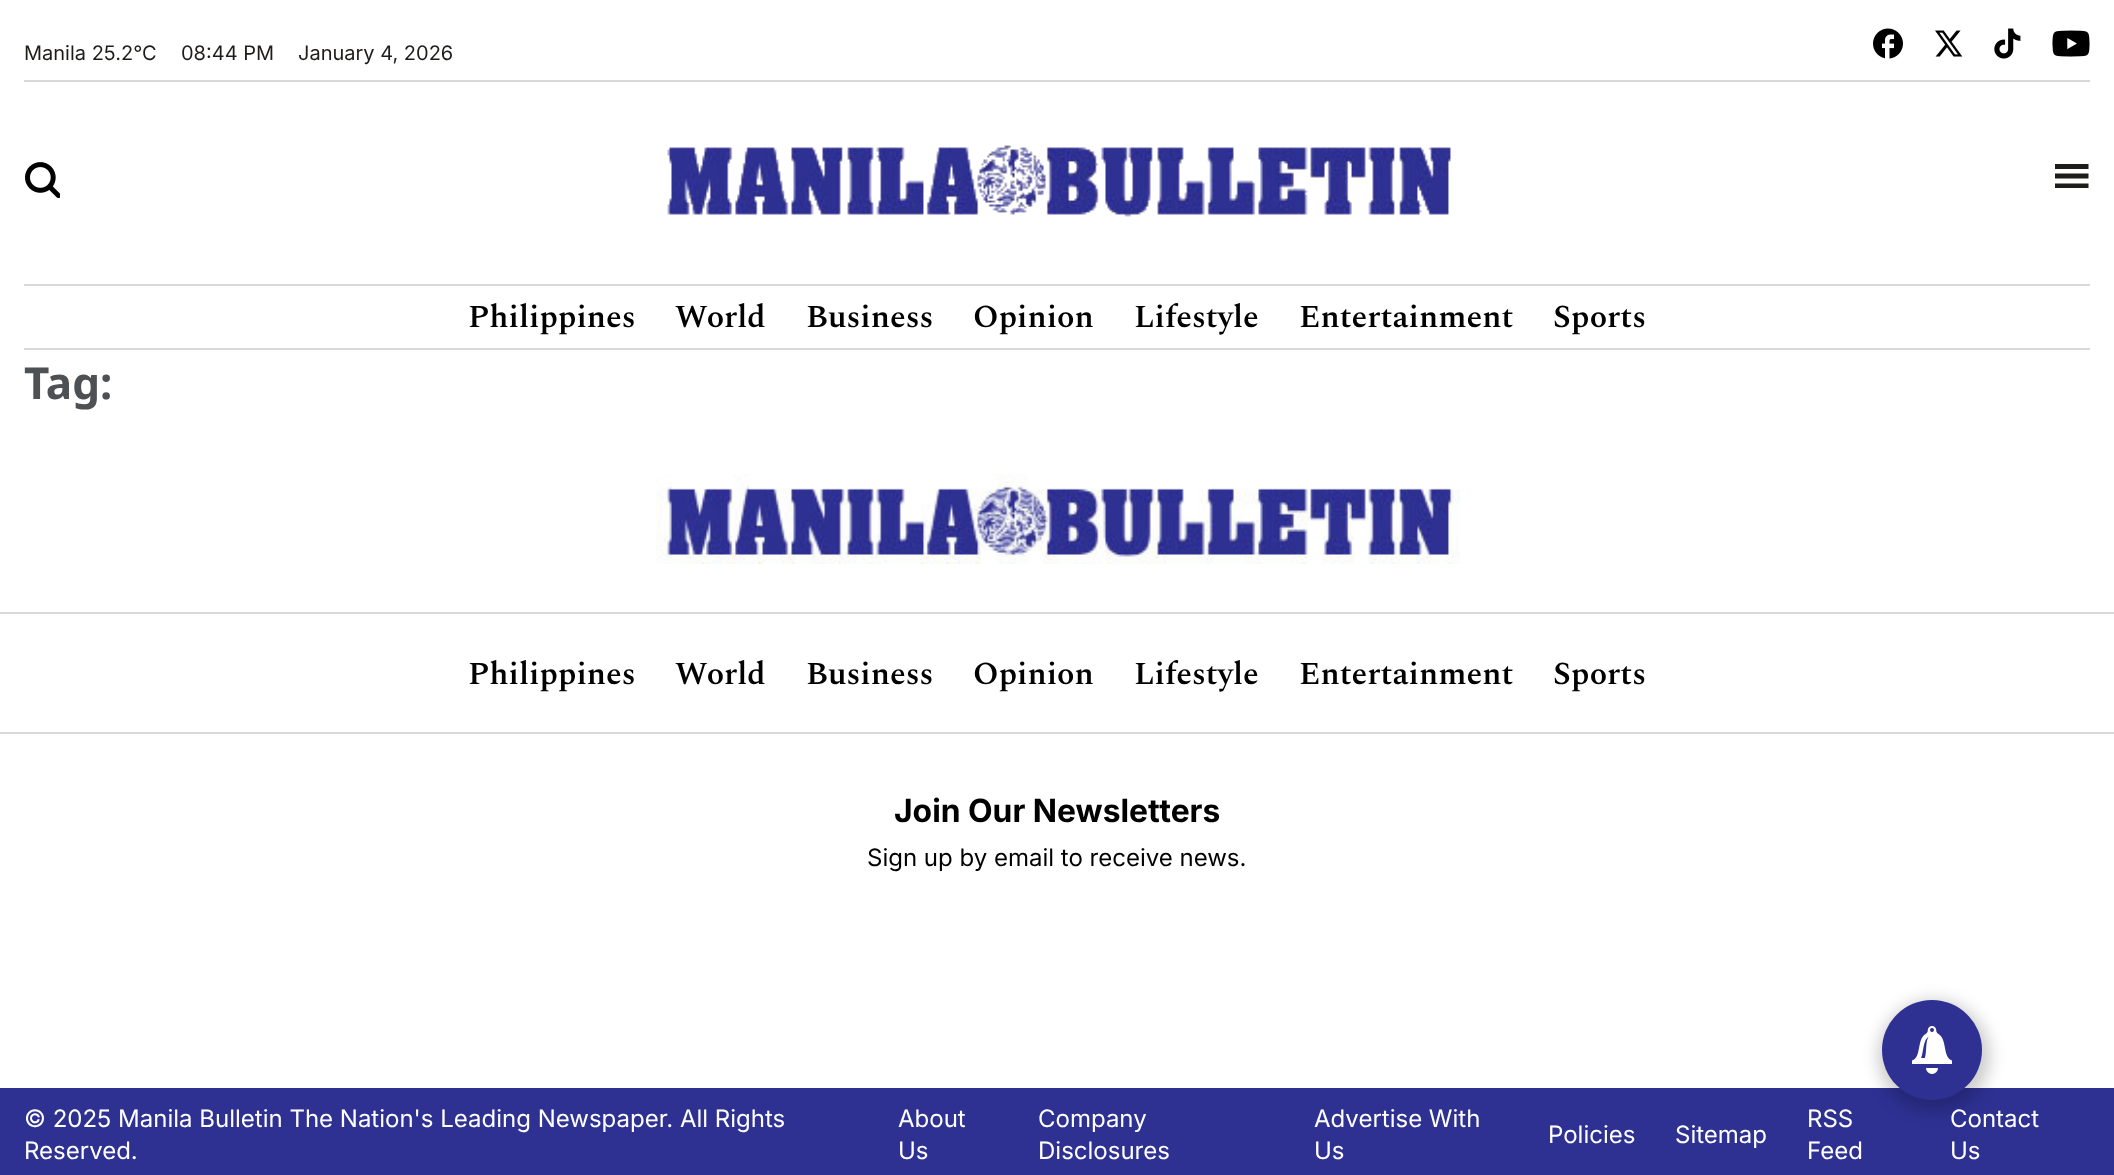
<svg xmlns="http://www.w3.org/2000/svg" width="2114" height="1175">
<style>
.a{font:20px Inter;fill:#1f1d1a}
.b{font:600 32px Spectral;fill:#000}
.c{font:bold 44px Noto Sans;fill:#4d5154}
.d{font:bold 32px Inter;fill:#000}
.e{font:24px Inter;fill:#000}
.f{font:24px Inter;fill:#fff}
</style>
<rect width="100%" height="100%" fill="#fff"/>
<image href="1.png" x="1873" y="28" width="30" height="31"/>
<image href="2.png" x="1935" y="30" width="28" height="27"/>
<image href="3.png" x="1994" y="28" width="27" height="31"/>
<image href="4.png" x="2052" y="30" width="38" height="27"/>
<path fill="#d8d8d8" d="M24 80h2066v2H24z"/>
<path fill="#d8d8d8" d="M24 284h2066v2H24z"/>
<image href="5.png" x="25" y="162" width="35" height="36"/>
<image href="6.png" x="667" y="145" width="784" height="72"/>
<path fill="#1f1d1a" fill-rule="evenodd" d="M2055 164h33.5v5h-33.5zm0 9.5h33.5v5h-33.5zm33.5 10h-33.5v4.5h33.5z"/>
<path fill="#d8d8d8" d="M24 348h2066v2H24z"/>
<image href="7.png" x="656" y="474" width="804" height="90"/>
<path fill="#d8d8d8" d="M0 612h2114v2H0z"/>
<path fill="#d8d8d8" d="M0 732h2114v2H0z"/>
<path fill="#2e3192" d="M0 1088h2114v87H0z"/>
<rect fill="#00000033" filter="blur(8px)" x="1878" y="1000" width="112" height="112" rx="56"/>
<circle fill="#2e3192" cx="1932" cy="1050" r="50"/>
<image href="8.png" x="1912" y="1026" width="40" height="48"/>
<text class="a" x="24" y="60">Manila 25.2°C</text>
<text class="a" x="181" y="60">08:44 PM</text>
<text class="a" x="298" y="60">January 4, 2026</text>
<text class="b" x="468" y="327">Philippines</text>
<text class="b" x="675" y="327">World</text>
<text class="b" x="806" y="327">Business</text>
<text class="b" x="973" y="327">Opinion</text>
<text class="b" x="1134" y="327">Lifestyle</text>
<text class="b" x="1299" y="327">Entertainment</text>
<text class="b" x="1553" y="327">Sports</text>
<text class="c" x="24" y="399">Tag:</text>
<text class="b" x="468" y="684">Philippines</text>
<text class="b" x="675" y="684">World</text>
<text class="b" x="806" y="684">Business</text>
<text class="b" x="973" y="684">Opinion</text>
<text class="b" x="1134" y="684">Lifestyle</text>
<text class="b" x="1299" y="684">Entertainment</text>
<text class="b" x="1553" y="684">Sports</text>
<text class="d" x="894" y="822">Join Our Newsletters</text>
<text class="e" x="867" y="866">Sign up by email to receive news.</text>
<text class="f" x="24" y="1127">© 2025 Manila Bulletin The Nation's Leading Newspaper. All Rights</text>
<text class="f" x="24" y="1159">Reserved.</text>
<text class="f" x="898" y="1127">About</text>
<text class="f" x="898" y="1159">Us</text>
<text class="f" x="1038" y="1127">Company</text>
<text class="f" x="1038" y="1159">Disclosures</text>
<text class="f" x="1314" y="1127">Advertise With</text>
<text class="f" x="1314" y="1159">Us</text>
<text class="f" x="1548" y="1143">Policies</text>
<text class="f" x="1675" y="1143">Sitemap</text>
<text class="f" x="1807" y="1127">RSS</text>
<text class="f" x="1807" y="1159">Feed</text>
<text class="f" x="1950" y="1127">Contact</text>
<text class="f" x="1950" y="1159">Us</text>
</svg>
